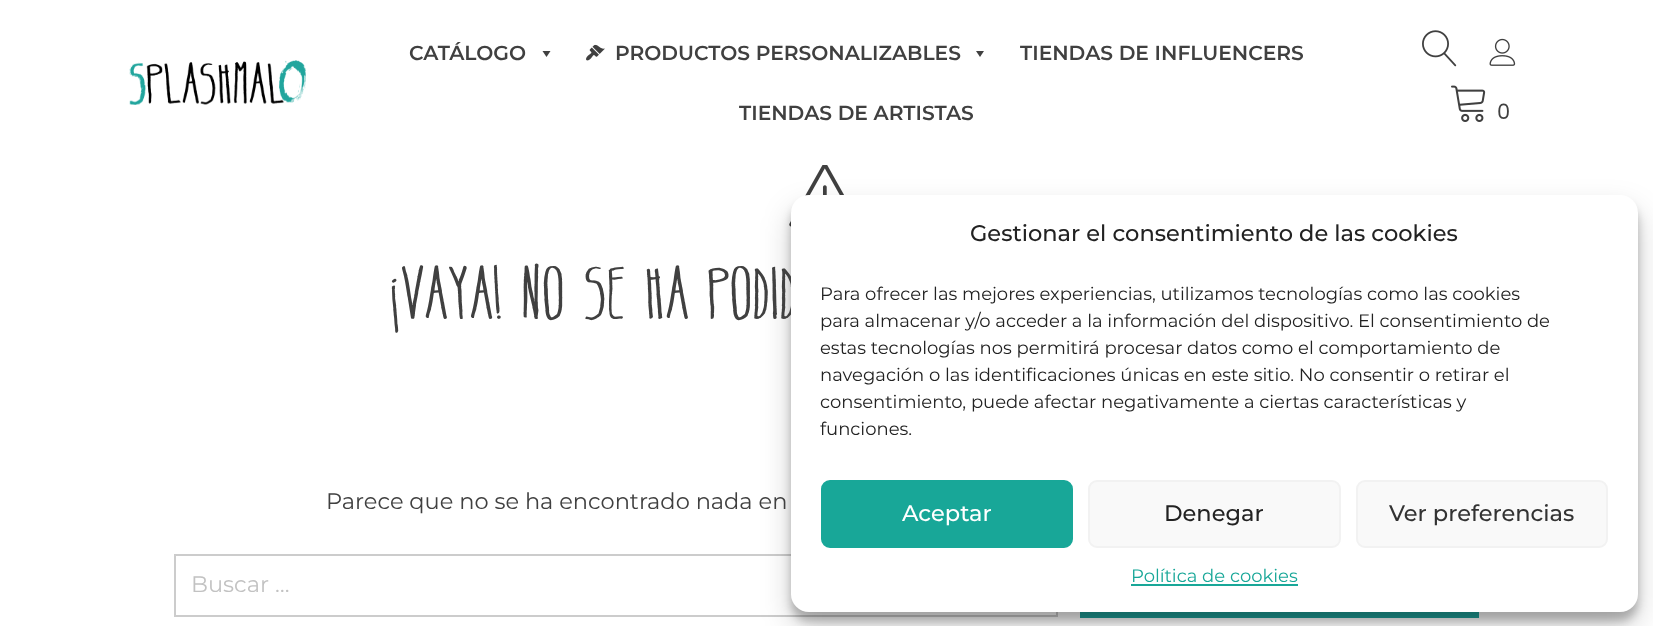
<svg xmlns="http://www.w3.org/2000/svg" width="1653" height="626">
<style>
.a{font:600 20.25px Montserrat;fill:#404040}
.b{font:21px Poppins;fill:#404040}
.c{font:75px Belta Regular;fill:#404040}
.d{font:22.5px Montserrat;fill:#404040}
.e{font:22.5px Montserrat;fill:#c2c2c2}
.f{font:500 22.5px Montserrat;fill:#222}
.g{font:18px Montserrat;fill:#222}
.h{font:500 22.5px Montserrat;fill:#fff}
.i{font:500 22.5px Montserrat;fill:#333}
.j{font:18px Montserrat;fill:#18a798}
</style>
<rect width="100%" height="100%" fill="#fff"/>
<image href="1.png" x="129" y="60" width="177" height="45"/>
<path fill="#404040" d="M550.5 51l-4 6l-4-6z"/>
<image href="2.png" x="586" y="44" width="19" height="17"/>
<path fill="#404040" d="M984 51l-4 6l-4-6z"/>
<image href="3.png" x="1422" y="30" width="35" height="37"/>
<image href="4.png" x="1489" y="38" width="27" height="28"/>
<image href="5.png" x="1451" y="85" width="35" height="37"/>
<image href="6.png" x="789" y="165" width="55" height="62"/>
<path fill="none" stroke="#ccc" stroke-width="2" d="M175 555h882v61H175z"/>
<path fill="#21a59d" d="M1080 612h399v6H1080z"/>
<rect fill="#0000003b" filter="blur(4.5px)" x="791" y="204" width="847" height="417" rx="18"/>
<rect fill="#00000030" filter="blur(15px)" x="791" y="210" width="847" height="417" rx="18"/>
<text class="a" x="409" y="60">CATÁLOGO</text>
<text class="a" x="615" y="60">PRODUCTOS PERSONALIZABLES</text>
<text class="a" x="1020" y="60">TIENDAS DE INFLUENCERS</text>
<text class="a" x="739" y="120">TIENDAS DE ARTISTAS</text>
<text class="b" x="1497" y="119">0</text>
<text class="c" x="392" y="319">¡Vaya! No se ha podid</text>
<text class="d" x="326" y="509">Parece que no se ha encontrado nada en</text>
<text class="e" x="191" y="592">Buscar …</text>
<rect fill="#fff" x="791" y="195" width="847" height="417" rx="18"/>
<text class="f" x="970" y="241">Gestionar el consentimiento de las cookies</text>
<text class="g" x="820" y="300">Para ofrecer las mejores experiencias, utilizamos tecnologías como las cookies</text>
<text class="g" x="820" y="327">para almacenar y/o acceder a la información del dispositivo. El consentimiento de</text>
<text class="g" x="820" y="354">estas tecnologías nos permitirá procesar datos como el comportamiento de</text>
<text class="g" x="820" y="381">navegación o las identificaciones únicas en este sitio. No consentir o retirar el</text>
<text class="g" x="820" y="408">consentimiento, puede afectar negativamente a ciertas características y</text>
<text class="g" x="820" y="435">funciones.</text>
<rect fill="#18a798" stroke="#18a798" stroke-width="2" x="822" y="481" width="250" height="66" rx="8"/>
<text class="h" x="902" y="521">Aceptar</text>
<rect fill="#f9f9f9" stroke="#f2f2f2" stroke-width="2" x="1089" y="481" width="251" height="66" rx="8"/>
<text class="f" x="1164" y="521">Denegar</text>
<rect fill="#f9f9f9" stroke="#f2f2f2" stroke-width="2" x="1357" y="481" width="250" height="66" rx="8"/>
<text class="i" x="1389" y="521">Ver preferencias</text>
<text class="j" x="1131" y="582">Política de cookies</text>
<path fill="#18a798" d="M1131 584h167v2H1131z"/>
</svg>
